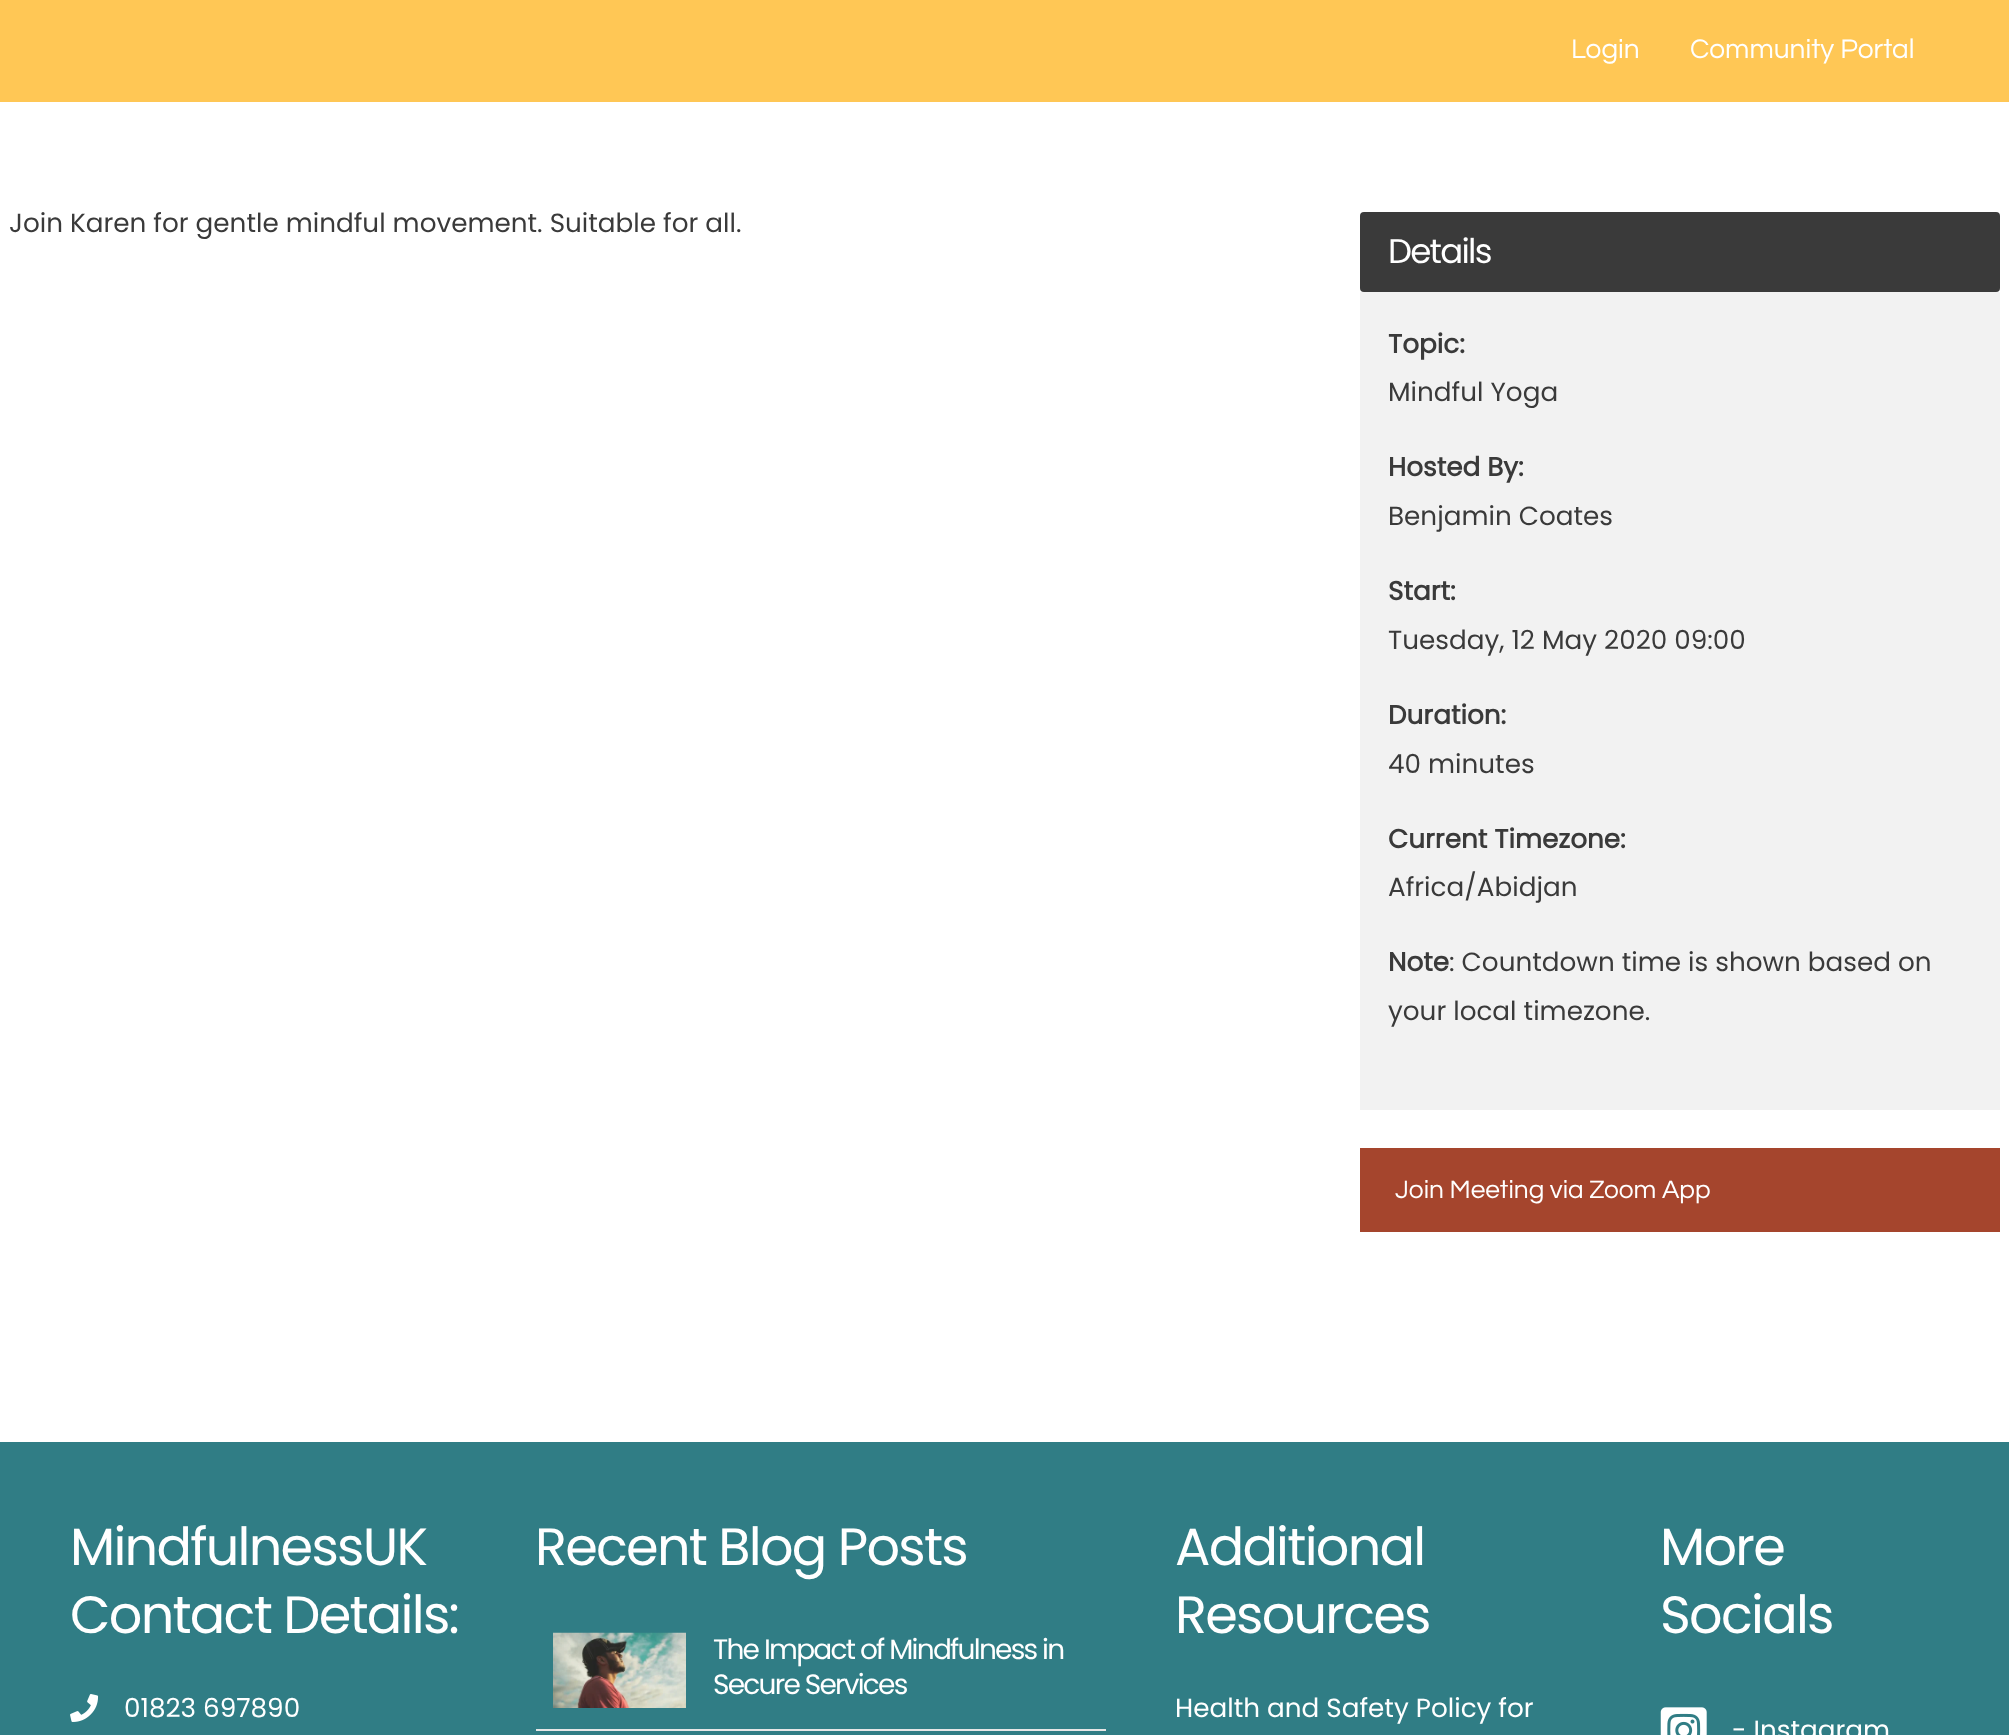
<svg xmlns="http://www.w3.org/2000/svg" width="2009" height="1735">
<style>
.a{font:28px Questrial;fill:#fff}
.b{font:26.25px Poppins;fill:#3a3a3a}
.c{font:34px Poppins;letter-spacing:-1.75px;fill:#fff}
.d{font:bold 26.25px Poppins;fill:#3a3a3a}
.e{font:26.25px Questrial;fill:#fff}
.f{font:52.5px Poppins;letter-spacing:-1.75px;fill:#fff}
.g{font:26.25px Poppins;fill:#fff}
.h{font:28px Poppins;letter-spacing:-1.75px;fill:#fff}
</style>
<rect width="100%" height="100%" fill="#fff"/>
<path fill="#ffc755" d="M0 0h2009v102H0z"/>
<rect fill="#3a3a3a" x="1360" y="212" width="640" height="80" rx="4"/>
<path fill="#f2f2f2" d="M1360 292h640v818H1360z"/>
<path fill="#a5452d" d="M1360 1148h640v84H1360z"/>
<path fill="#307d85" d="M0 1442h2009v293H0z"/>
<image href="1.png" x="70" y="1694" width="29" height="28"/>
<path fill="#e6e6e6" d="M536 1729h570v2H536z"/>
<image href="2.png" x="553" y="1632" width="133" height="76"/>
<image href="3.png" x="1660" y="1707" width="47" height="28"/>
<text class="a" x="1571" y="58">Login</text>
<text class="a" x="1690" y="58">Community Portal</text>
<text class="b" x="9" y="232">Join Karen for gentle mindful movement. Suitable for all.</text>
<text class="c" x="1388" y="263">Details</text>
<text class="d" x="1388" y="353">Topic:</text>
<text class="b" x="1388" y="401">Mindful Yoga</text>
<text class="d" x="1388" y="476">Hosted By:</text>
<text class="b" x="1388" y="525">Benjamin Coates</text>
<text class="d" x="1388" y="600">Start:</text>
<text class="b" x="1388" y="649">Tuesday, 12 May 2020 09:00</text>
<text class="d" x="1388" y="724">Duration:</text>
<text class="b" x="1388" y="773">40 minutes</text>
<text class="d" x="1388" y="848">Current Timezone:</text>
<text class="b" x="1388" y="896">Africa/Abidjan</text>
<text class="d" x="1388" y="971">Note</text>
<text class="b" x="1449" y="971">: Countdown time is shown based on</text>
<text class="b" x="1388" y="1020">your local timezone.</text>
<text class="e" x="1395" y="1198">Join Meeting via Zoom App</text>
<text class="f" x="70" y="1565">MindfulnessUK</text>
<text class="f" x="70" y="1633">Contact Details:</text>
<text class="g" x="124" y="1717">01823 697890</text>
<text class="f" x="535" y="1565">Recent Blog Posts</text>
<text class="h" x="713" y="1659">The Impact of Mindfulness in</text>
<text class="h" x="713" y="1694">Secure Services</text>
<text class="f" x="1175" y="1565">Additional</text>
<text class="f" x="1175" y="1633">Resources</text>
<text class="g" x="1175" y="1717">Health and Safety Policy for</text>
<text class="f" x="1660" y="1565">More</text>
<text class="f" x="1660" y="1633">Socials</text>
<text class="g" x="1732" y="1739">- Instagram</text>
</svg>
